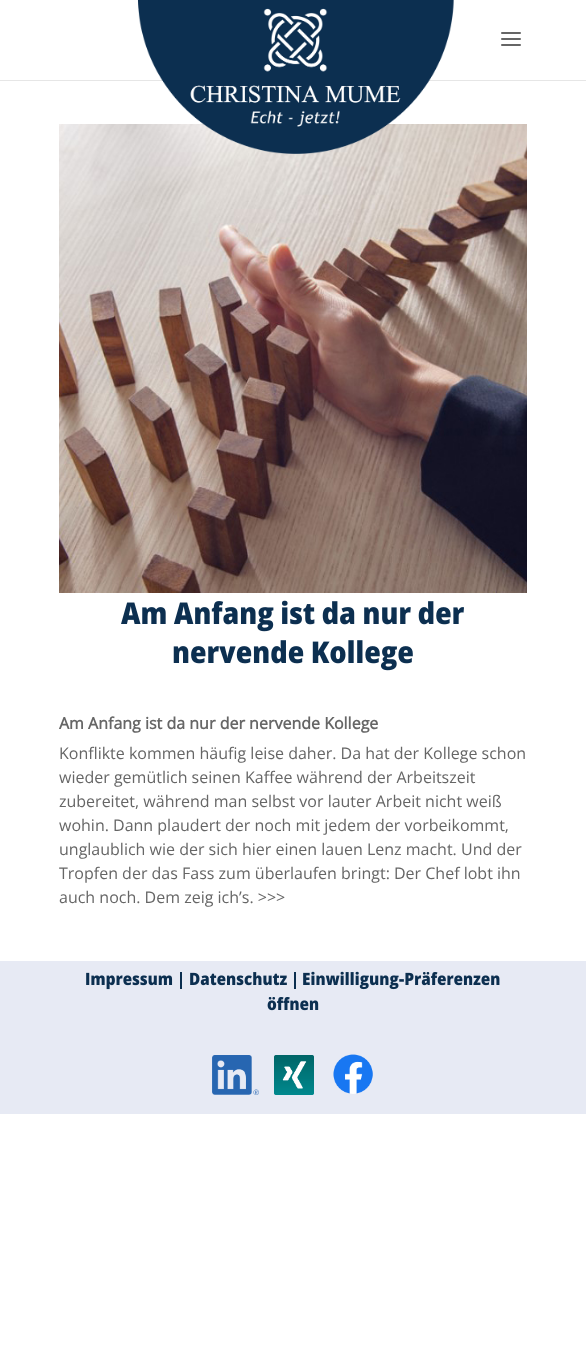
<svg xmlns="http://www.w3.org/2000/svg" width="586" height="1370">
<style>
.a{font:bold 16px Open Sans;fill:#666}
.b{font:16px Open Sans;fill:#666}
</style>
<rect width="100%" height="100%" fill="#fff"/>
<path fill="#e6e6e6" d="M0 80h586v1H0z"/>
<image href="3.png" x="59" y="124" width="468" height="469"/>
<image href="1.png" x="137" y="0" width="317" height="154"/>
<image href="2.png" x="501" y="32" width="20" height="14"/>
<image href="4.png" x="121" y="600" width="343" height="32"/>
<image href="5.png" x="173" y="640" width="240" height="31"/>
<path fill="#e7eaf4" d="M0 961h586v153H0z"/>
<image href="6.png" x="86" y="972" width="87" height="18"/>
<path fill="#0c2f50" d="M180 972h2v17H180z"/>
<image href="7.png" x="190" y="972" width="97" height="14"/>
<path fill="#0c2f50" d="M294 972h2v17H294z"/>
<image href="8.png" x="303" y="971" width="197" height="19"/>
<image href="9.png" x="267" y="997" width="52" height="14"/>
<image href="10.png" x="212" y="1055" width="47" height="40"/>
<image href="11.png" x="274" y="1055" width="40" height="40"/>
<image href="12.png" x="333" y="1054" width="40" height="40"/>
<text class="a" x="59" y="729">Am Anfang ist da nur der nervende Kollege</text>
<text class="b" x="59" y="759">Konflikte kommen häufig leise daher. Da hat der Kollege schon</text>
<text class="b" x="59" y="783">wieder gemütlich seinen Kaffee während der Arbeitszeit</text>
<text class="b" x="59" y="807">zubereitet, während man selbst vor lauter Arbeit nicht weiß</text>
<text class="b" x="59" y="831">wohin. Dann plaudert der noch mit jedem der vorbeikommt,</text>
<text class="b" x="59" y="855">unglaublich wie der sich hier einen lauen Lenz macht. Und der</text>
<text class="b" x="59" y="879">Tropfen der das Fass zum überlaufen bringt: Der Chef lobt ihn</text>
<text class="b" x="59" y="903">auch noch. Dem zeig ich’s. &gt;&gt;&gt;</text>
</svg>
